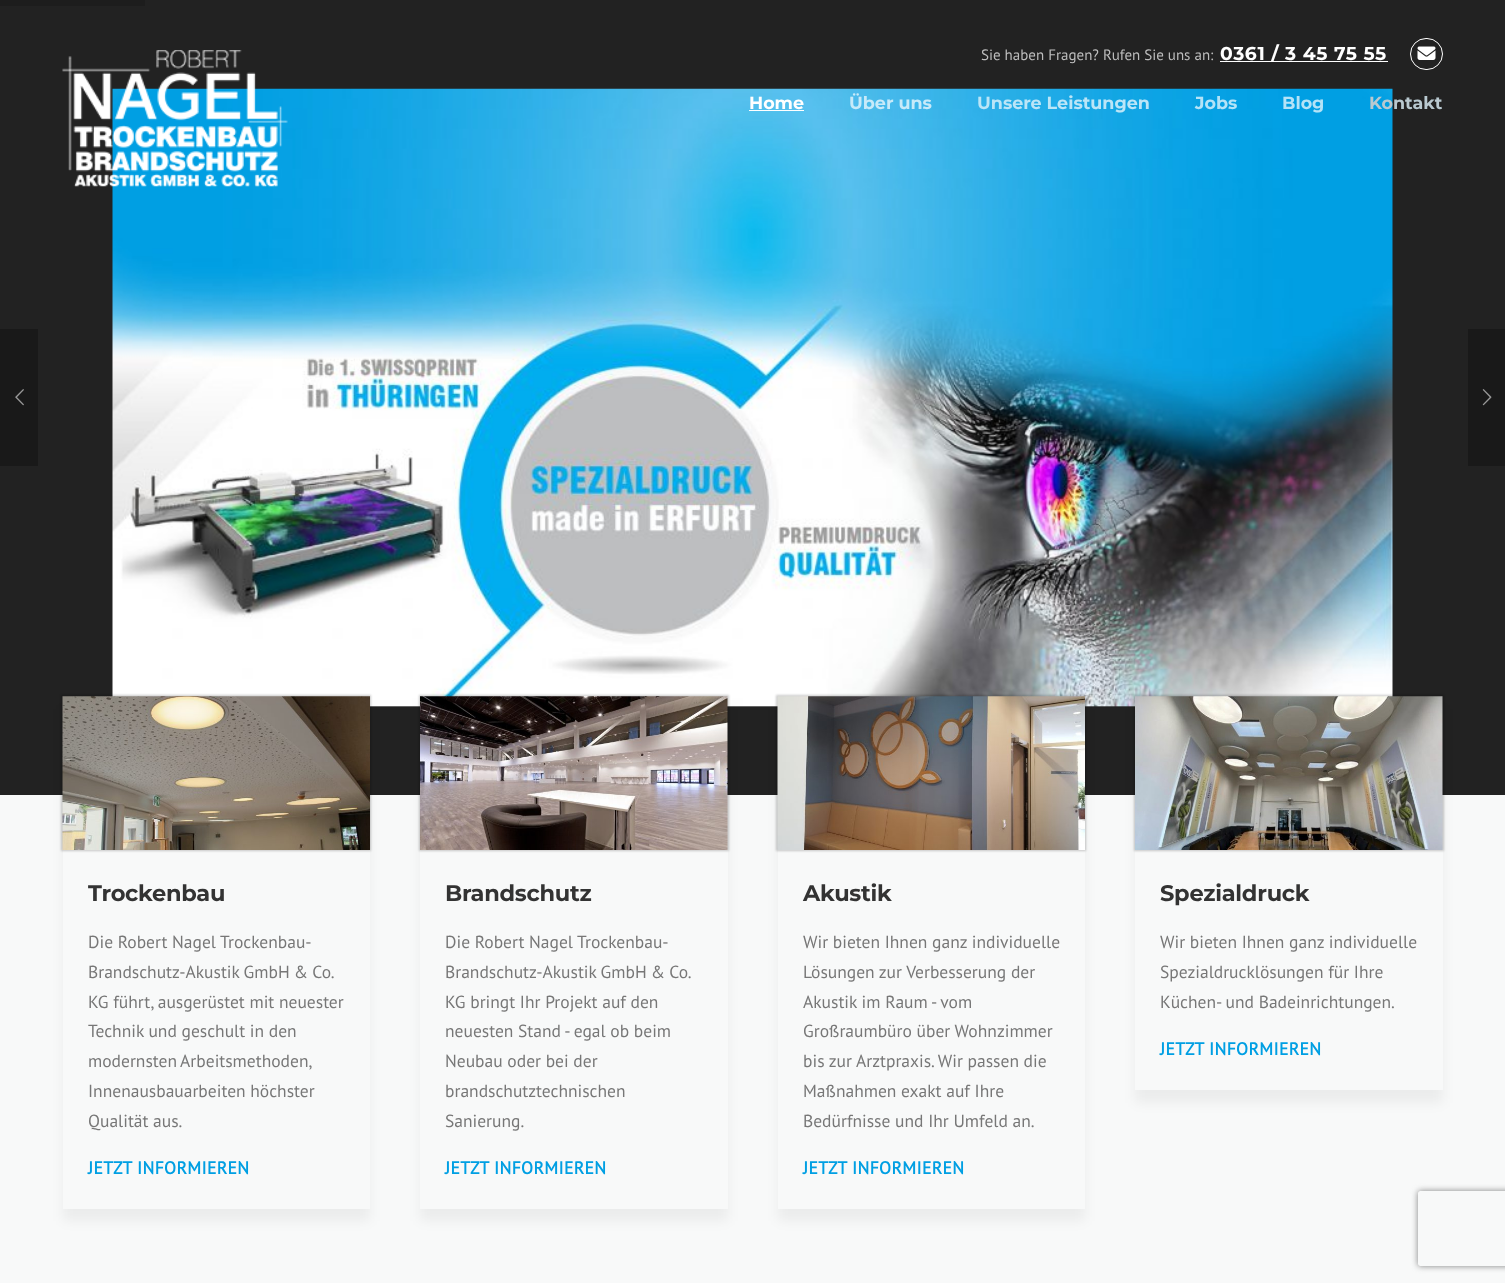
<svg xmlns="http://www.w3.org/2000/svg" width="1505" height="1283">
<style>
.a{font:15px PT Sans;fill:#bdbdbd}
.b{font:100 18.75px Montserrat;letter-spacing:0.6px;fill:#fff}
.c{font:100 17.5px Montserrat;fill:#fff}
.d{font:100 17.5px Montserrat;fill:#c7eaf9}
.e{font:100 17.5px Montserrat;fill:#bbe5f7}
.f{font:100 17.5px Montserrat;fill:#b4e3f7}
.g{font:100 17.5px Montserrat;fill:#b9c9d0}
.h{font:100 22.5px Montserrat;letter-spacing:-0.25px;fill:#333}
.i{font:17.5px PT Sans;fill:#777}
.j{font:bold 17.5px PT Sans;letter-spacing:0.4px;fill:#009fe3}
</style>
<defs>
<clipPath id="clip1"><path d="M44 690h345v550h-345zm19 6h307v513h-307z" clip-rule="evenodd"/></clipPath>
<clipPath id="clip2"><path d="M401 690h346v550h-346zm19 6h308v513h-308z" clip-rule="evenodd"/></clipPath>
<clipPath id="clip3"><path d="M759 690h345v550h-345zm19 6h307v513h-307z" clip-rule="evenodd"/></clipPath>
<clipPath id="clip4"><path d="M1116 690h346v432h-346zm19 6h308v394h-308z" clip-rule="evenodd"/></clipPath>
<clipPath id="clip5"><path d="M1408 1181h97v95h-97zm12.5 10h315c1.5 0 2.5 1 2.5 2.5v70c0 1.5-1 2.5-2.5 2.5h-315c-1.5 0-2.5-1-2.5-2.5v-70c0-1.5 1-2.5 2.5-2.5z" clip-rule="evenodd"/></clipPath>
</defs>
<rect width="100%" height="100%" fill="#f8f9f9"/>
<path fill="#222" d="M0 0h1505v795H0z"/>
<image href="4.png" x="112" y="88" width="1281" height="619"/>
<image href="1.png" x="62" y="50" width="226" height="137"/>
<path fill="#fff" d="M1220 61h168v1H1220z"/>
<rect fill="none" stroke="#fff" x="1410.5" y="38.5" width="32" height="31" rx="15.5"/>
<image href="2.png" x="1417" y="46" width="19" height="14"/>
<path fill="#fff" d="M749 110h55v1H749z"/>
<path fill="#1d1d1d" d="M0 0h145v6H0z"/>
<path fill="#191919" d="M0 329h38v137H0z"/>
<image href="3.png" x="15" y="389" width="9" height="17"/>
<path fill="#191919" d="M1468 329h37v137H1468z"/>
<image href="5.png" x="1482" y="389" width="10" height="17"/>
<g clip-path="url(#clip1)">
<path fill="#0000000d" filter="blur(6px)" d="M63 709h307v512H63z"/>
</g>
<path fill="#00000033" filter="blur(1px)" d="M61 695h310v156H61z"/>
<image href="6.png" x="62" y="696" width="308" height="154"/>
<g clip-path="url(#clip2)">
<path fill="#0000000d" filter="blur(6px)" d="M420 709h308v512H420z"/>
</g>
<path fill="#00000033" filter="blur(1px)" d="M419 695h310v156H419z"/>
<image href="7.png" x="420" y="696" width="308" height="154"/>
<g clip-path="url(#clip3)">
<path fill="#0000000d" filter="blur(6px)" d="M778 709h307v512H778z"/>
</g>
<path fill="#00000033" filter="blur(1px)" d="M776 695h310v156H776z"/>
<image href="8.png" x="777" y="696" width="308" height="154"/>
<g clip-path="url(#clip4)">
<path fill="#0000000d" filter="blur(6px)" d="M1135 709h308v394H1135z"/>
</g>
<path fill="#00000033" filter="blur(1px)" d="M1134 695h310v156H1134z"/>
<image href="9.png" x="1135" y="696" width="308" height="154"/>
<g clip-path="url(#clip5)">
<rect fill="#808080" filter="blur(3px)" x="1418" y="1191" width="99" height="75" rx="2.5"/>
</g>
<text class="a" x="981" y="60">Sie haben Fragen? Rufen Sie uns an:</text>
<text class="b" x="1220" y="60">0361 / 3 45 75 55</text>
<text class="c" x="749" y="109">Home</text>
<text class="d" x="849" y="109">Über uns</text>
<text class="e" x="977" y="109">Unsere Leistungen</text>
<text class="f" x="1195" y="109">Jobs</text>
<text class="f" x="1282" y="109">Blog</text>
<text class="g" x="1369" y="109">Kontakt</text>
<text class="h" x="88" y="901">Trockenbau</text>
<text class="i" x="88" y="948">Die Robert Nagel Trockenbau-</text>
<text class="i" x="88" y="978" word-spacing="-0.5">Brandschutz-Akustik GmbH &amp; Co.</text>
<text class="i" x="88" y="1008">KG führt, ausgerüstet mit neuester</text>
<text class="i" x="88" y="1037">Technik und geschult in den</text>
<text class="i" x="88" y="1067" word-spacing="-1">modernsten Arbeitsmethoden,</text>
<text class="i" x="88" y="1097">Innenausbauarbeiten höchster</text>
<text class="i" x="88" y="1127">Qualität aus.</text>
<text class="j" x="88" y="1174">JETZT INFORMIEREN</text>
<text class="h" x="445" y="901">Brandschutz</text>
<text class="i" x="445" y="948">Die Robert Nagel Trockenbau-</text>
<text class="i" x="445" y="978" word-spacing="-0.5">Brandschutz-Akustik GmbH &amp; Co.</text>
<text class="i" x="445" y="1008">KG bringt Ihr Projekt auf den</text>
<text class="i" x="445" y="1037">neuesten Stand - egal ob beim</text>
<text class="i" x="445" y="1067">Neubau oder bei der</text>
<text class="i" x="445" y="1097">brandschutztechnischen</text>
<text class="i" x="445" y="1127">Sanierung.</text>
<text class="j" x="445" y="1174">JETZT INFORMIEREN</text>
<text class="h" x="803" y="901">Akustik</text>
<text class="i" x="803" y="948">Wir bieten Ihnen ganz individuelle</text>
<text class="i" x="803" y="978">Lösungen zur Verbesserung der</text>
<text class="i" x="803" y="1008">Akustik im Raum - vom</text>
<text class="i" x="803" y="1037">Großraumbüro über Wohnzimmer</text>
<text class="i" x="803" y="1067">bis zur Arztpraxis. Wir passen die</text>
<text class="i" x="803" y="1097">Maßnahmen exakt auf Ihre</text>
<text class="i" x="803" y="1127">Bedürfnisse und Ihr Umfeld an.</text>
<text class="j" x="803" y="1174">JETZT INFORMIEREN</text>
<text class="h" x="1160" y="901">Spezialdruck</text>
<text class="i" x="1160" y="948">Wir bieten Ihnen ganz individuelle</text>
<text class="i" x="1160" y="978">Spezialdrucklösungen für Ihre</text>
<text class="i" x="1160" y="1008">Küchen- und Badeinrichtungen.</text>
<text class="j" x="1160" y="1055">JETZT INFORMIEREN</text>
</svg>
